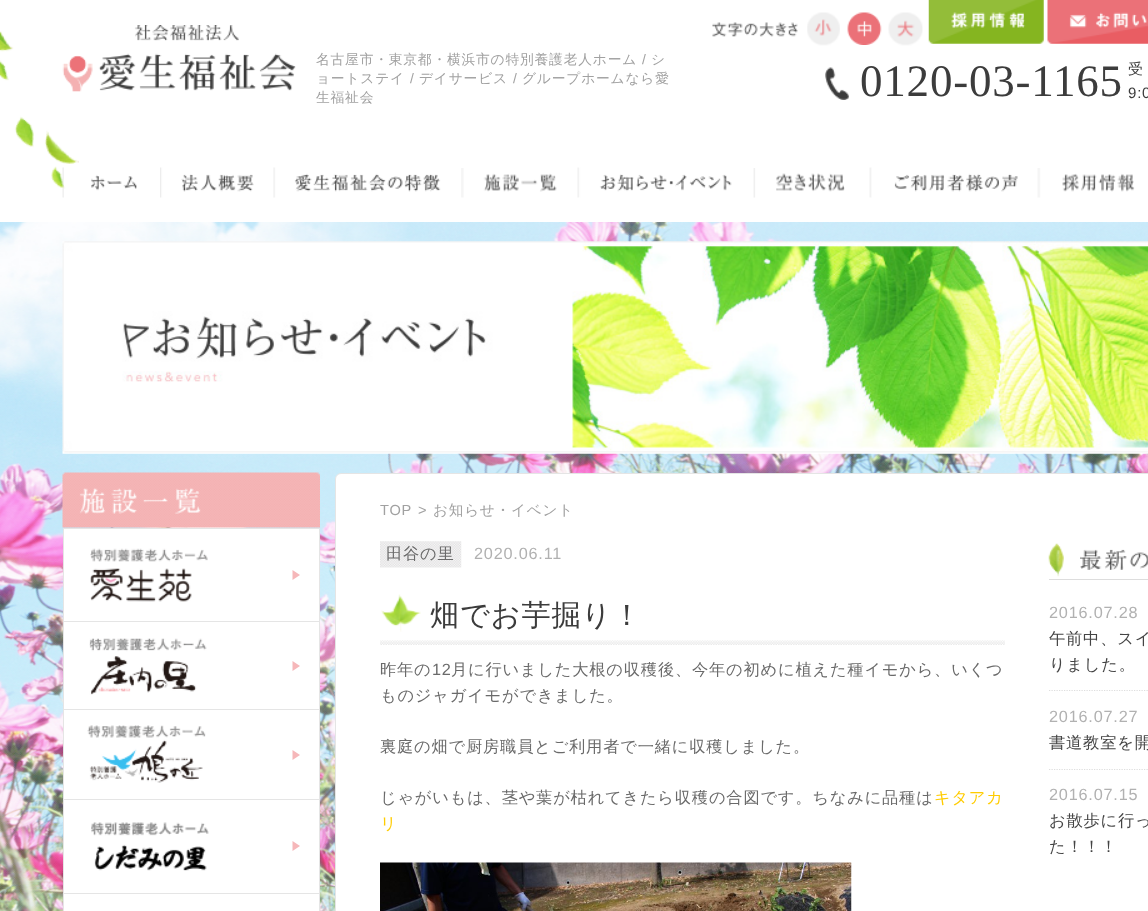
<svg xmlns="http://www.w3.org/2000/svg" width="1148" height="911">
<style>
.a{font:500 13.75px WenQuanYi Zen Hei;letter-spacing:0.8px;fill:#a1a1a1}
.b{font:13.75px Liberation Sans;letter-spacing:0.8px;fill:#a1a1a1}
.c{font:45px Liberation Serif;letter-spacing:0.8px;fill:#3c3c3c}
.d{font:500 15px WenQuanYi Zen Hei;letter-spacing:0.8px;fill:#3c3c3c}
.e{font:15px Liberation Sans;letter-spacing:0.8px;fill:#3c3c3c}
.f{font:14.6px Liberation Sans;letter-spacing:0.8px;fill:#a1a1a1}
.g{font:500 14.6px WenQuanYi Zen Hei;letter-spacing:0.8px;fill:#a1a1a1}
.h{font:500 16.25px WenQuanYi Zen Hei;letter-spacing:0.8px;fill:#6a6a6a}
.i{font:16.25px Liberation Sans;letter-spacing:0.8px;fill:#b1b1b1}
.j{font:500 29.25px WenQuanYi Zen Hei;letter-spacing:0.8px;fill:#3c3c3c}
.k{font:16.25px Liberation Sans;letter-spacing:0.8px;fill:#6a6a6a}
.l{font:500 16.25px WenQuanYi Zen Hei;letter-spacing:0.8px;fill:#fc0}
.m{font:500 16.25px WenQuanYi Zen Hei;letter-spacing:0.8px;fill:#444}
</style>
<rect width="100%" height="100%" fill="#fff"/>
<image href="2.png" x="62" y="25" width="234" height="67"/>
<image href="10.png" x="62" y="167" width="75" height="31"/>
<image href="1.png" x="0" y="31" width="79" height="158"/>
<image href="3.png" x="712" y="22" width="86" height="15"/>
<image href="4.png" x="807" y="12" width="33" height="34"/>
<image href="5.png" x="847" y="12" width="35" height="33"/>
<image href="6.png" x="888" y="12" width="35" height="34"/>
<image href="7.png" x="928" y="0" width="116" height="44"/>
<image href="8.png" x="1047" y="0" width="101" height="44"/>
<image href="9.png" x="825" y="67" width="24" height="33"/>
<image href="11.png" x="160" y="167" width="94" height="31"/>
<image href="12.png" x="273" y="167" width="168" height="31"/>
<image href="13.png" x="461" y="168" width="96" height="30"/>
<image href="14.png" x="577" y="167" width="155" height="31"/>
<image href="15.png" x="753" y="168" width="92" height="30"/>
<image href="16.png" x="869" y="167" width="149" height="31"/>
<image href="17.png" x="1037" y="168" width="98" height="30"/>
<image href="18.png" x="0" y="222" width="1148" height="689"/>
<image href="19.png" x="62" y="241" width="1086" height="213"/>
<image href="20.png" x="62" y="472" width="258" height="56"/>
<path fill="#fff" stroke="#e5e5e5" d="M63.5 528.5h256v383H63.5z"/>
<image href="21.png" x="90" y="548" width="118" height="54"/>
<path fill="#f6b7b9" d="M292.5 580v-10l7.5 5z"/>
<path fill="#e5e5e5" d="M64 621h255v1H64z"/>
<image href="22.png" x="89" y="638" width="118" height="57"/>
<path fill="#f6b7b9" d="M292.5 671v-10l7.5 5z"/>
<path fill="#e5e5e5" d="M64 709h255v1H64z"/>
<image href="23.png" x="87" y="725" width="119" height="58"/>
<path fill="#f6b7b9" d="M292.5 760v-10l7.5 5z"/>
<path fill="#e5e5e5" d="M64 799h255v1H64z"/>
<image href="24.png" x="91" y="822" width="118" height="49"/>
<path fill="#f6b7b9" d="M292.5 851v-10l7.5 5z"/>
<path fill="#e5e5e5" d="M64 893h255v1H64z"/>
<rect fill="#fff" stroke="#e5e5e5" x="335.5" y="473.5" width="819" height="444" rx="5.5"/>
<image href="25.png" x="380" y="541" width="82" height="27"/>
<image href="26.png" x="380" y="640" width="625" height="5"/>
<image href="27.png" x="381" y="594" width="40" height="38"/>
<image href="28.png" x="380" y="862" width="472" height="49"/>
<image href="29.png" x="1048" y="543" width="16" height="34"/>
<path fill="#ddd" d="M1049 579h99v1H1049z"/>
<image href="30.png" x="1080" y="549" width="68" height="21"/>
<path fill="none" stroke="#dedede" stroke-width="1.2" stroke-dasharray="1.25 1.25" d="M1049 690.5h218.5"/>
<path fill="none" stroke="#dedede" stroke-width="1.2" stroke-dasharray="1.25 1.25" d="M1049 769.5h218.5"/>
<text class="a" x="316" y="64">名古屋市・東京都・横浜市の特別養護老人ホーム</text>
<text class="b" x="642" y="64">/</text>
<text class="a" x="651" y="64">シ</text>
<text class="a" x="316" y="83">ョートステイ</text>
<text class="b" x="410" y="83">/</text>
<text class="a" x="419" y="83">デイサービス</text>
<text class="b" x="513" y="83">/</text>
<text class="a" x="522" y="83">グループホームなら愛</text>
<text class="a" x="316" y="102">生福祉会</text>
<text class="c" x="860" y="96">0120-03-1165</text>
<text class="d" x="1128" y="74">受</text>
<text class="e" x="1128" y="98">9:0</text>
<text class="f" x="380" y="515">TOP</text>
<text class="f" x="418" y="515">&gt;</text>
<text class="g" x="433" y="515">お知らせ・イベント</text>
<text class="h" x="386" y="559">田谷の里</text>
<text class="i" x="474" y="559">2020.06.11</text>
<text class="j" x="430" y="625">畑でお芋掘り！</text>
<text class="h" x="380" y="675">昨年の</text>
<text class="k" x="432" y="675">12</text>
<text class="h" x="451" y="675">月に行いました大根の収穫後、今年の初めに植えた種イモから、いくつ</text>
<text class="h" x="380" y="701">ものジャガイモができました。</text>
<text class="h" x="380" y="752">裏庭の畑で厨房職員とご利用者で一緒に収穫しました。</text>
<text class="h" x="380" y="803">じゃがいもは、茎や葉が枯れてきたら収穫の合図です。ちなみに品種は</text>
<text class="l" x="934" y="803">キタアカ</text>
<text class="l" x="380" y="829">リ</text>
<text class="i" x="1049" y="618">2016.07.28</text>
<text class="m" x="1049" y="644">午前中、スイ</text>
<text class="m" x="1049" y="670">りました。</text>
<text class="i" x="1049" y="722">2016.07.27</text>
<text class="m" x="1049" y="748">書道教室を開</text>
<text class="i" x="1049" y="800">2016.07.15</text>
<text class="m" x="1049" y="826">お散歩に行っ</text>
<text class="m" x="1049" y="852">た！！！</text>
</svg>
